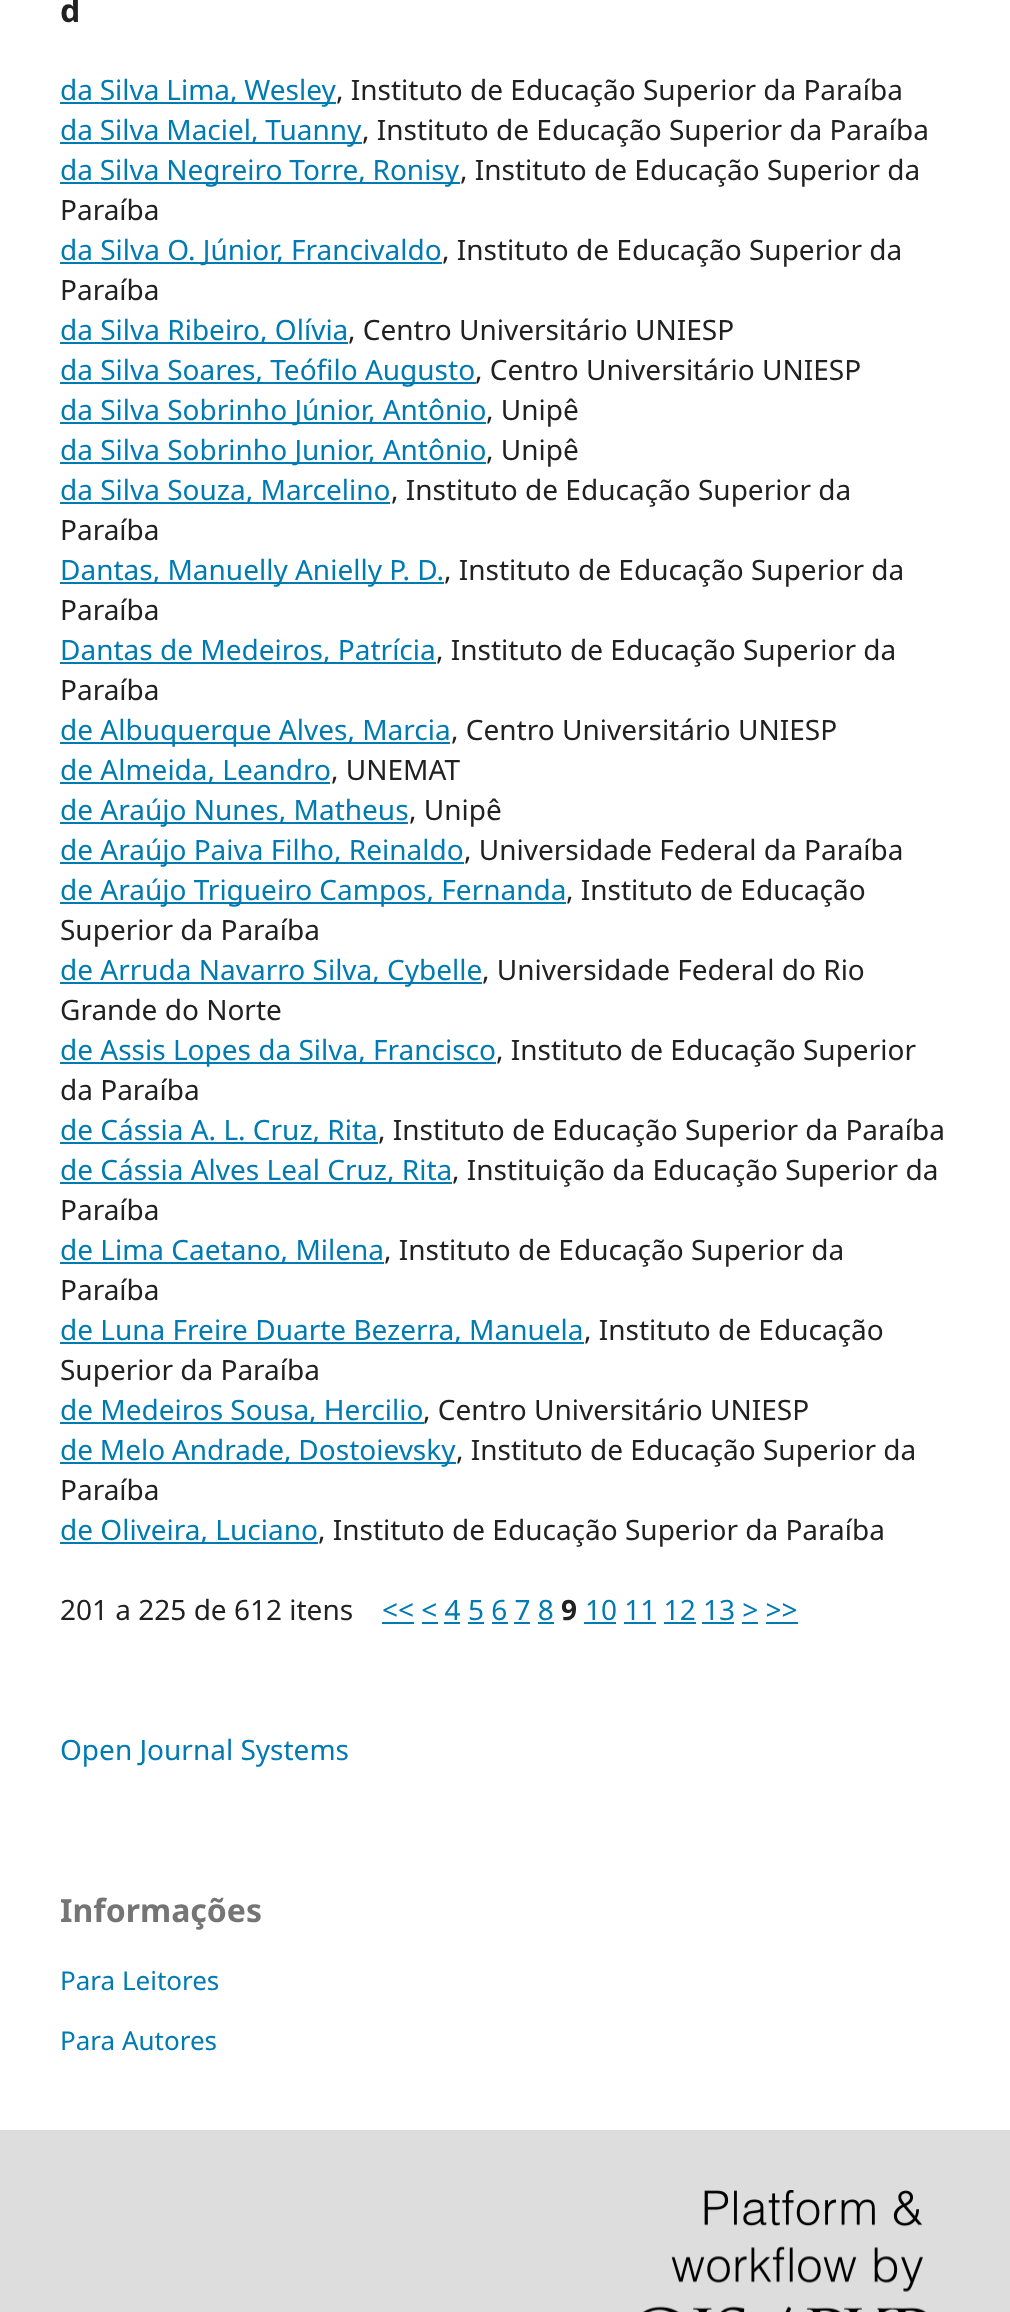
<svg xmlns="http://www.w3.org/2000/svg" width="1010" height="2312">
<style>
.a{font:bold 32px Noto Sans;fill:#212121}
.b{font:28px Noto Sans;fill:#007ab2}
.c{font:28px Noto Sans;fill:#212121}
.d{font:bold 28px Noto Sans;fill:#212121}
.e{font:bold 32px Noto Sans;fill:#757575}
.f{font:26px Noto Sans;fill:#007ab2}
</style>
<rect width="100%" height="100%" fill="#fff"/>
<path fill="#007ab2" d="M60 102h276v2H60z"/>
<path fill="#007ab2" d="M60 142h302v2H60z"/>
<path fill="#007ab2" d="M60 182h400v2H60z"/>
<path fill="#007ab2" d="M60 262h382v2H60z"/>
<path fill="#007ab2" d="M60 342h288v2H60z"/>
<path fill="#007ab2" d="M60 382h416v2H60z"/>
<path fill="#007ab2" d="M60 422h426v2H60z"/>
<path fill="#007ab2" d="M60 462h426v2H60z"/>
<path fill="#007ab2" d="M60 502h330v2H60z"/>
<path fill="#007ab2" d="M60 582h384v2H60z"/>
<path fill="#007ab2" d="M60 662h376v2H60z"/>
<path fill="#007ab2" d="M60 742h390v2H60z"/>
<path fill="#007ab2" d="M60 782h270v2H60z"/>
<path fill="#007ab2" d="M60 822h348v2H60z"/>
<path fill="#007ab2" d="M60 862h404v2H60z"/>
<path fill="#007ab2" d="M60 902h506v2H60z"/>
<path fill="#007ab2" d="M60 982h422v2H60z"/>
<path fill="#007ab2" d="M60 1062h436v2H60z"/>
<path fill="#007ab2" d="M60 1142h318v2H60z"/>
<path fill="#007ab2" d="M60 1182h392v2H60z"/>
<path fill="#007ab2" d="M60 1262h324v2H60z"/>
<path fill="#007ab2" d="M60 1342h524v2H60z"/>
<path fill="#007ab2" d="M60 1422h364v2H60z"/>
<path fill="#007ab2" d="M60 1462h396v2H60z"/>
<path fill="#007ab2" d="M60 1542h258v2H60z"/>
<path fill="#007ab2" d="M382 1622h32v2H382z"/>
<path fill="#007ab2" d="M584 1622h32v2H584z"/>
<path fill="#007ab2" d="M422 1622h16v2H422z"/>
<path fill="#007ab2" d="M444 1622h16v2H444z"/>
<path fill="#007ab2" d="M468 1622h16v2H468z"/>
<path fill="#007ab2" d="M492 1622h16v2H492z"/>
<path fill="#007ab2" d="M514 1622h16v2H514z"/>
<path fill="#007ab2" d="M538 1622h16v2H538z"/>
<path fill="#007ab2" d="M624 1622h32v2H624z"/>
<path fill="#007ab2" d="M664 1622h32v2H664z"/>
<path fill="#007ab2" d="M702 1622h32v2H702z"/>
<path fill="#007ab2" d="M742 1622h16v2H742z"/>
<path fill="#007ab2" d="M766 1622h32v2H766z"/>
<path fill="#ddd" d="M0 2130h1010v182H0z"/>
<image href="1.png" x="642" y="2190" width="284" height="122"/>
<text class="a" x="60" y="22">d</text>
<text class="b" x="60" y="100" word-spacing="-0.5">da Silva Lima, Wesley</text>
<text class="c" x="336" y="100">, Instituto de Educação Superior da Paraíba</text>
<text class="b" x="60" y="140" word-spacing="-0.5">da Silva Maciel, Tuanny</text>
<text class="c" x="362" y="140">, Instituto de Educação Superior da Paraíba</text>
<text class="b" x="60" y="180" word-spacing="-0.5">da Silva Negreiro Torre, Ronisy</text>
<text class="c" x="460" y="180">, Instituto de Educação Superior da</text>
<text class="c" x="60" y="220">Paraíba</text>
<text class="b" x="60" y="260">da Silva O. Júnior, Francivaldo</text>
<text class="c" x="442" y="260">, Instituto de Educação Superior da</text>
<text class="c" x="60" y="300">Paraíba</text>
<text class="b" x="60" y="340">da Silva Ribeiro, Olívia</text>
<text class="c" x="348" y="340">, Centro Universitário UNIESP</text>
<text class="b" x="60" y="380">da Silva Soares, Teófilo Augusto</text>
<text class="c" x="475" y="380">, Centro Universitário UNIESP</text>
<text class="b" x="60" y="420">da Silva Sobrinho Júnior, Antônio</text>
<text class="c" x="486" y="420">, Unipê</text>
<text class="b" x="60" y="460">da Silva Sobrinho Junior, Antônio</text>
<text class="c" x="486" y="460">, Unipê</text>
<text class="b" x="60" y="500">da Silva Souza, Marcelino</text>
<text class="c" x="391" y="500">, Instituto de Educação Superior da</text>
<text class="c" x="60" y="540">Paraíba</text>
<text class="b" x="60" y="580">Dantas, Manuelly Anielly P. D.</text>
<text class="c" x="444" y="580">, Instituto de Educação Superior da</text>
<text class="c" x="60" y="620">Paraíba</text>
<text class="b" x="60" y="660">Dantas de Medeiros, Patrícia</text>
<text class="c" x="436" y="660">, Instituto de Educação Superior da</text>
<text class="c" x="60" y="700">Paraíba</text>
<text class="b" x="60" y="740">de Albuquerque Alves, Marcia</text>
<text class="c" x="451" y="740">, Centro Universitário UNIESP</text>
<text class="b" x="60" y="780">de Almeida, Leandro</text>
<text class="c" x="331" y="780">, UNEMAT</text>
<text class="b" x="60" y="820">de Araújo Nunes, Matheus</text>
<text class="c" x="409" y="820">, Unipê</text>
<text class="b" x="60" y="860">de Araújo Paiva Filho, Reinaldo</text>
<text class="c" x="464" y="860">, Universidade Federal da Paraíba</text>
<text class="b" x="60" y="900">de Araújo Trigueiro Campos, Fernanda</text>
<text class="c" x="566" y="900">, Instituto de Educação</text>
<text class="c" x="60" y="940">Superior da Paraíba</text>
<text class="b" x="60" y="980">de Arruda Navarro Silva, Cybelle</text>
<text class="c" x="482" y="980">, Universidade Federal do Rio</text>
<text class="c" x="60" y="1020">Grande do Norte</text>
<text class="b" x="60" y="1060">de Assis Lopes da Silva, Francisco</text>
<text class="c" x="496" y="1060">, Instituto de Educação Superior</text>
<text class="c" x="60" y="1100">da Paraíba</text>
<text class="b" x="60" y="1140">de Cássia A. L. Cruz, Rita</text>
<text class="c" x="378" y="1140">, Instituto de Educação Superior da Paraíba</text>
<text class="b" x="60" y="1180">de Cássia Alves Leal Cruz, Rita</text>
<text class="c" x="452" y="1180">, Instituição da Educação Superior da</text>
<text class="c" x="60" y="1220">Paraíba</text>
<text class="b" x="60" y="1260">de Lima Caetano, Milena</text>
<text class="c" x="384" y="1260">, Instituto de Educação Superior da</text>
<text class="c" x="60" y="1300">Paraíba</text>
<text class="b" x="60" y="1340">de Luna Freire Duarte Bezerra, Manuela</text>
<text class="c" x="584" y="1340">, Instituto de Educação</text>
<text class="c" x="60" y="1380">Superior da Paraíba</text>
<text class="b" x="60" y="1420">de Medeiros Sousa, Hercilio</text>
<text class="c" x="423" y="1420">, Centro Universitário UNIESP</text>
<text class="b" x="60" y="1460" word-spacing="-0.5">de Melo Andrade, Dostoievsky</text>
<text class="c" x="456" y="1460">, Instituto de Educação Superior da</text>
<text class="c" x="60" y="1500">Paraíba</text>
<text class="b" x="60" y="1540">de Oliveira, Luciano</text>
<text class="c" x="318" y="1540">, Instituto de Educação Superior da Paraíba</text>
<text class="c" x="60" y="1620">201 a 225 de 612 itens</text>
<text class="b" x="382" y="1620">&lt;&lt; &lt; 4 5 6 7 8</text>
<text class="d" x="561" y="1620">9</text>
<text class="b" x="585" y="1620">10 11 12 13 &gt; &gt;&gt;</text>
<text class="b" x="60" y="1760">Open Journal Systems</text>
<text class="e" x="60" y="1922">Informações</text>
<text class="f" x="60" y="1990">Para Leitores</text>
<text class="f" x="60" y="2050">Para Autores</text>
</svg>
